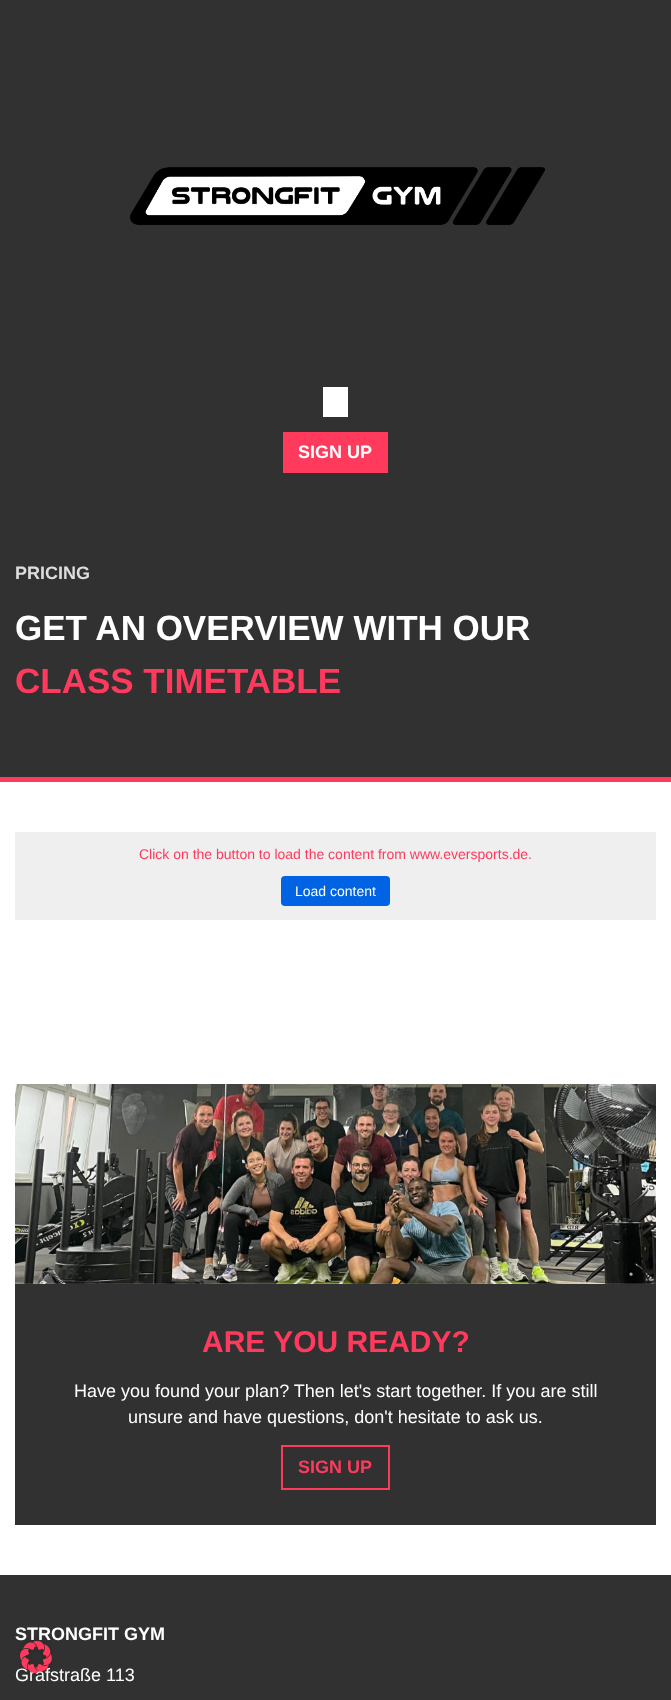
<svg xmlns="http://www.w3.org/2000/svg" width="671" height="1700">
<style>
.a{font:bold 18px Liberation Sans;fill:#fff}
.b{font:bold 18px Liberation Sans;fill:#ddd}
.c{font:bold 35px Liberation Sans;fill:#fff}
.d{font:bold 35px Liberation Sans;fill:#ff3a5d}
.e{font:14px Liberation Sans;fill:#ff3a5d}
.f{font:14px Liberation Sans;fill:#fff}
.g{font:bold 30px Liberation Sans;fill:#ff3a5d}
.h{font:18px Liberation Sans;fill:#fff}
.i{font:bold 18px Liberation Sans;fill:#ff3a5d}
</style>
<rect width="100%" height="100%" fill="#fff"/>
<path fill="#313131" d="M0 0h671v777H0z"/>
<image href="1.png" x="130" y="167" width="415" height="58"/>
<path fill="#fff" d="M323 387h25v30H323z"/>
<path fill="#ff3a5d" d="M283 432h105v41H283z"/>
<path fill="#ff3a5d" d="M0 777h671v5H0z"/>
<path fill="#efefef" d="M15 832h641v88H15z"/>
<rect fill="#0063e3" x="281" y="876" width="109" height="30" rx="4"/>
<image href="2.png" x="15" y="1084" width="641" height="200"/>
<path fill="#313131" d="M15 1284h641v241H15z"/>
<path fill="none" stroke="#ff3a5d" stroke-width="2" d="M282 1446h107v43H282z"/>
<path fill="#313131" d="M0 1575h671v125H0z"/>
<text class="a" x="298" y="458">SIGN UP</text>
<text class="b" x="15" y="579">PRICING</text>
<text class="c" x="15" y="640">GET AN OVERVIEW WITH OUR</text>
<text class="d" x="15" y="693">CLASS TIMETABLE</text>
<text class="e" x="139" y="859">Click on the button to load the content from www.eversports.de.</text>
<text class="f" x="295" y="896">Load content</text>
<text class="g" x="202" y="1352">ARE YOU READY?</text>
<text class="h" x="74" y="1397">Have you found your plan? Then let's start together. If you are still</text>
<text class="h" x="128" y="1423">unsure and have questions, don't hesitate to ask us.</text>
<text class="i" x="298" y="1473">SIGN UP</text>
<text class="a" x="15" y="1640">STRONGFIT GYM</text>
<text class="h" x="15" y="1681">Gräfstraße 113</text>
<image href="3.png" x="19" y="1637" width="33" height="40"/>
</svg>
